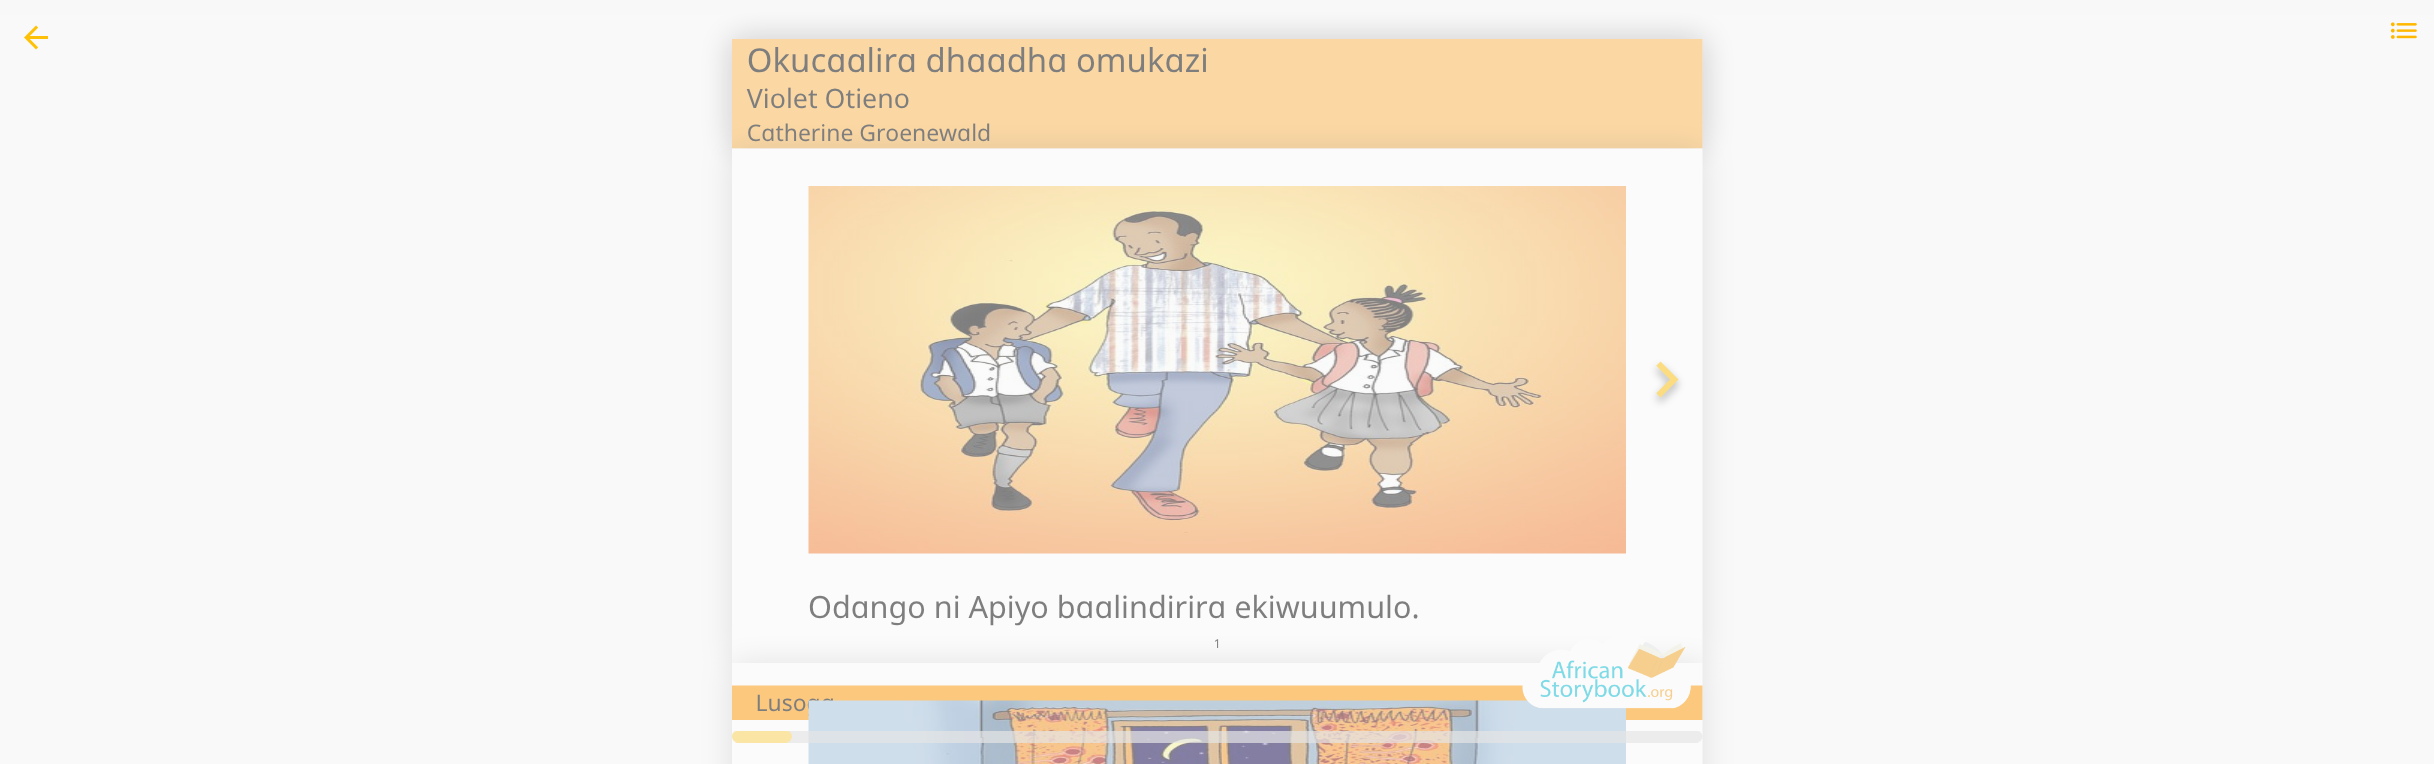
<svg xmlns="http://www.w3.org/2000/svg" width="2434" height="764">
<rect width="100%" height="100%" fill="#fff"/>
<image href="1.png" x="0" y="0" width="2434" height="764"/>
<image href="2.png" x="24" y="25" width="24" height="25"/>
<image href="3.png" x="2390" y="22" width="27" height="17"/>
</svg>
